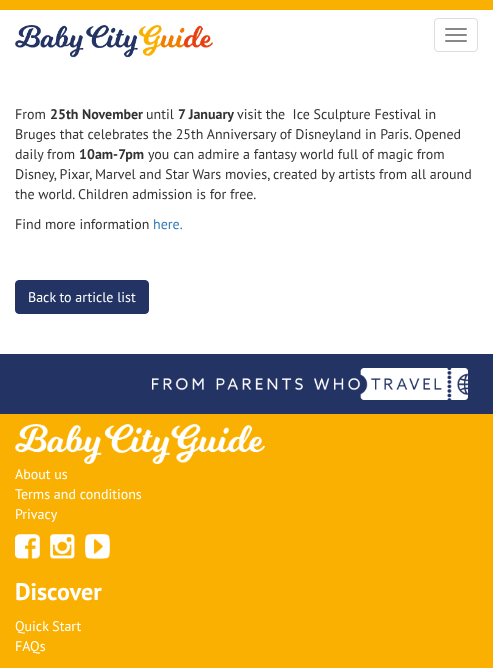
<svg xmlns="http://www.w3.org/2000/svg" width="493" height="668">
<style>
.a{font:14px PT Sans;fill:#333}
.b{font:bold 14px PT Sans;fill:#333}
.c{font:14px PT Sans;fill:#337ab7}
.d{font:14px PT Sans;fill:#fff}
.e{font:bold 24px PT Sans;fill:#fff}
</style>
<rect width="100%" height="100%" fill="#fff"/>
<path fill="#fab001" d="M0 0h493v10H0z"/>
<image href="1.png" x="15" y="25" width="198" height="33"/>
<rect fill="none" stroke="#ddd" x="434.5" y="18.5" width="43" height="33" rx="3.5"/>
<rect fill="#888" x="445" y="28" width="22" height="2" rx="1"/>
<rect fill="#888" x="445" y="34" width="22" height="2" rx="1"/>
<rect fill="#888" x="445" y="40" width="22" height="2" rx="1"/>
<rect fill="#233364" stroke="#233364" x="15.5" y="280.5" width="133" height="33" rx="3.5"/>
<path fill="#fab001" d="M0 414h493v254H0z"/>
<path fill="#233364" d="M0 354h493v60H0z"/>
<image href="2.png" x="152" y="368" width="316" height="32"/>
<image href="3.png" x="15" y="424" width="250" height="40"/>
<image href="4.png" x="15" y="534" width="25" height="25"/>
<image href="5.png" x="50" y="534" width="25" height="25"/>
<image href="6.png" x="85" y="534" width="25" height="25"/>
<text class="a" x="15" y="119">From</text>
<text class="b" x="50" y="119">25th November</text>
<text class="a" x="146" y="119">until</text>
<text class="b" x="178" y="119">7 January</text>
<text class="a" xml:space="preserve" x="237" y="119">visit the  Ice Sculpture Festival in</text>
<text class="a" x="15" y="139">Bruges that celebrates the 25th Anniversary of Disneyland in Paris. Opened</text>
<text class="a" x="15" y="159">daily from</text>
<text class="b" x="79" y="159">10am-7pm</text>
<text class="a" x="148" y="159">you can admire a fantasy world full of magic from</text>
<text class="a" x="15" y="179">Disney, Pixar, Marvel and Star Wars movies, created by artists from all around</text>
<text class="a" x="15" y="199">the world. Children admission is for free.</text>
<text class="a" x="15" y="229">Find more information</text>
<text class="c" x="153" y="229">here.</text>
<text class="d" x="28" y="302">Back to article list</text>
<text class="d" x="15" y="479">About us</text>
<text class="d" x="15" y="499">Terms and conditions</text>
<text class="d" x="15" y="519">Privacy</text>
<text class="e" x="15" y="600">Discover</text>
<text class="d" x="15" y="631">Quick Start</text>
<text class="d" x="15" y="651">FAQs</text>
</svg>
